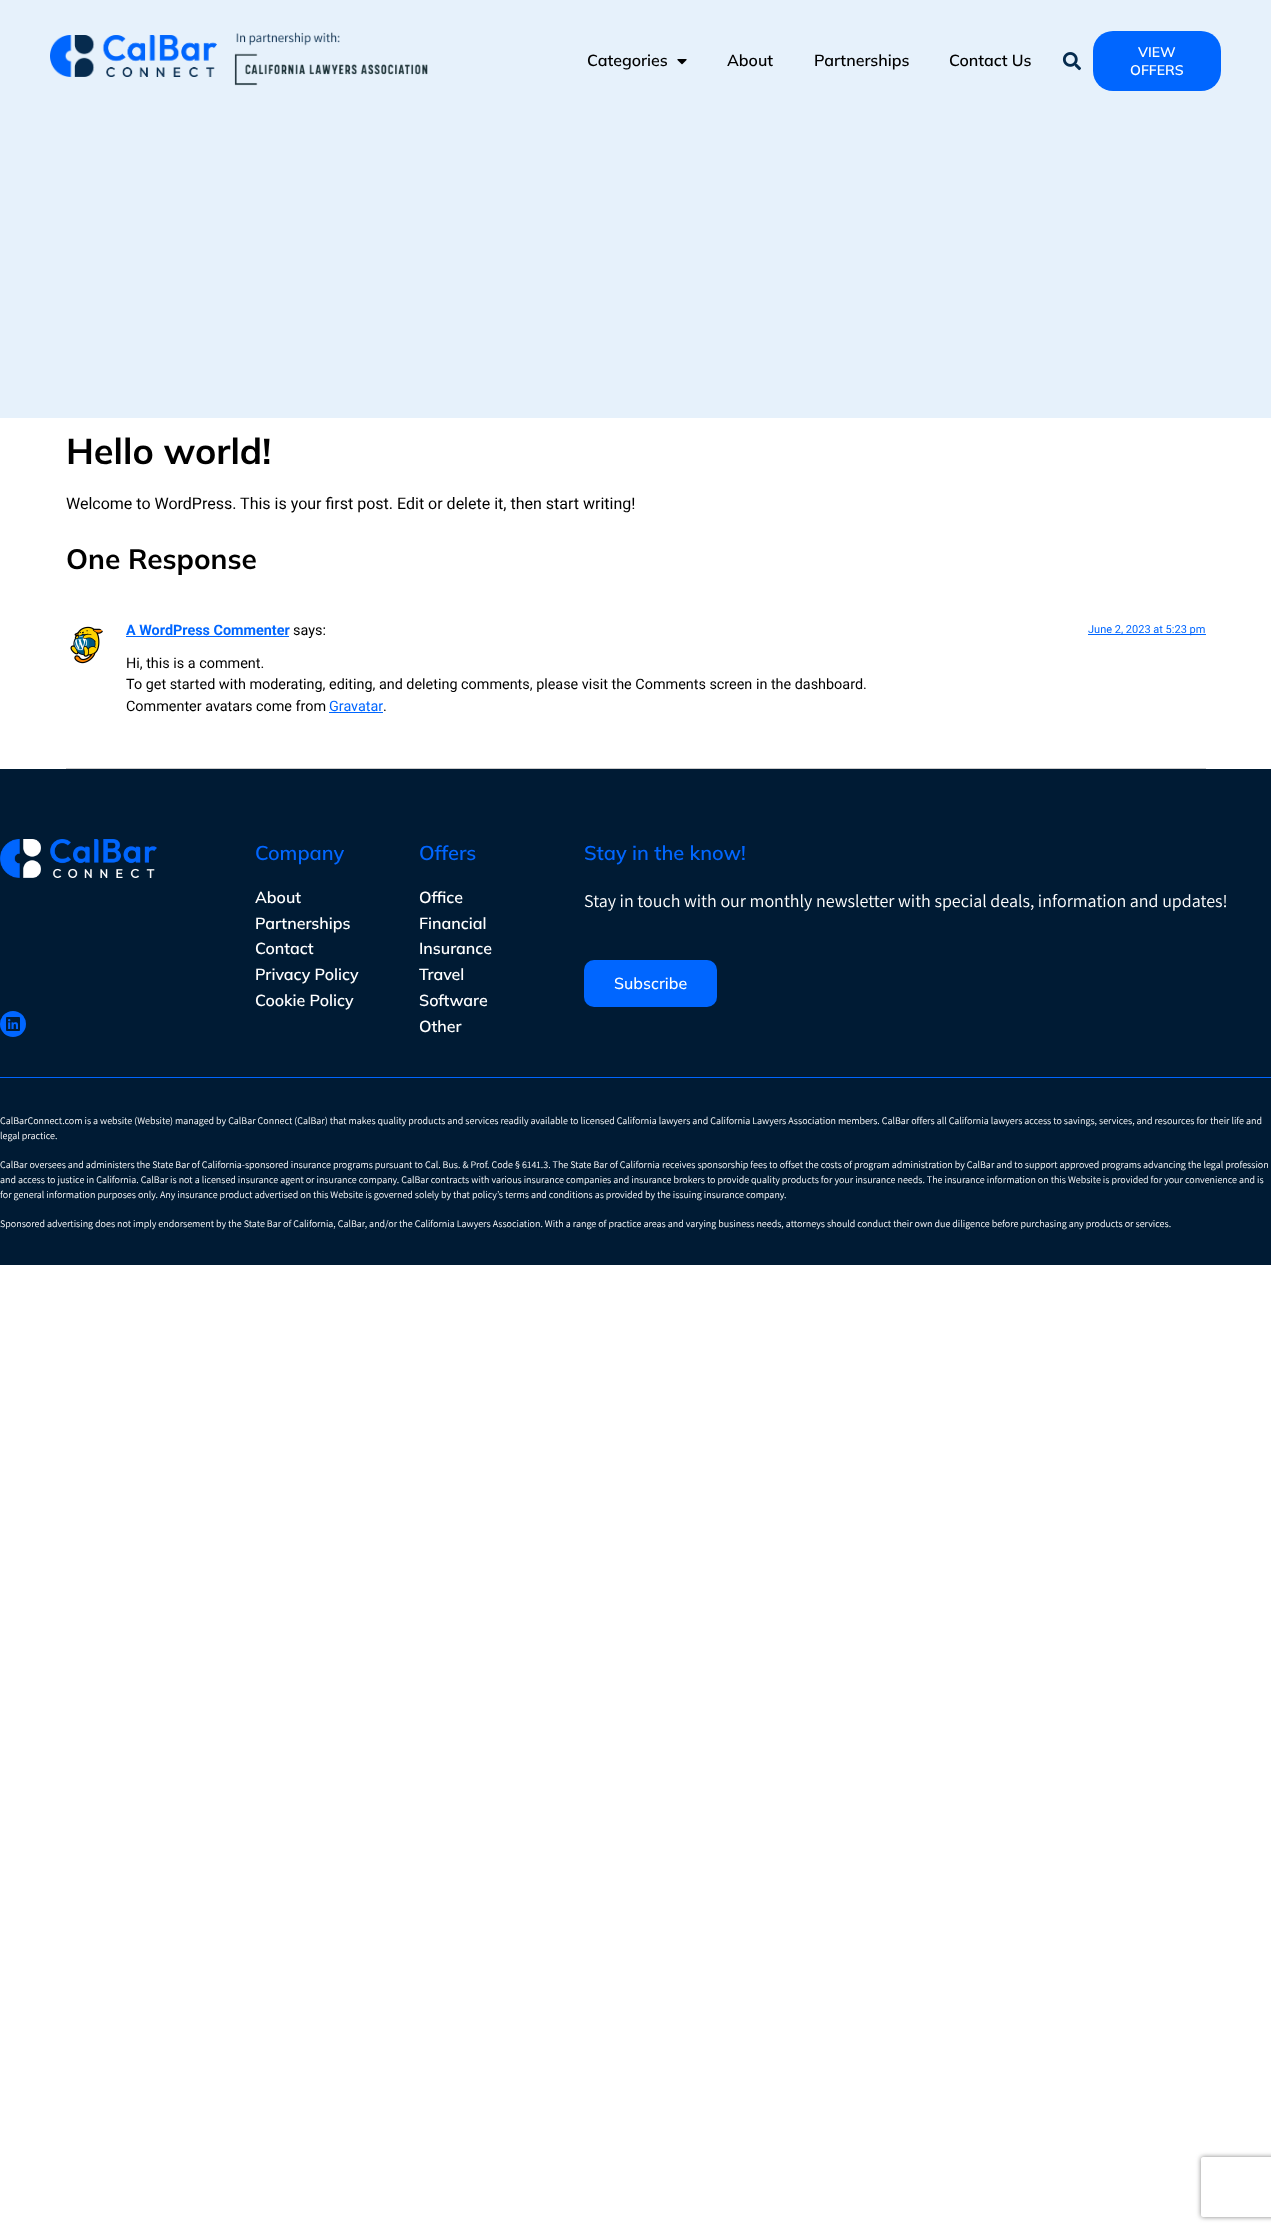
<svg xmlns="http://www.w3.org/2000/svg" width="1271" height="2231">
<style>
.a{font:600 16px Mulish;fill:#000}
.b{font:600 14px Mulish;fill:#fff}
.c{font:bold 36px Mulish;fill:#000}
.d{font:16px Roboto;fill:#000}
.e{font:bold 28px Mulish;fill:#000}
.f{font:bold 14.4px Roboto;fill:#06f}
.g{font:14.4px Roboto;fill:#000}
.h{font:11px Roboto;fill:#06f}
.i{font:14.4px Roboto;fill:#06f}
.j{font:600 20px Mulish;fill:#06f}
.k{font:600 16px Mulish;fill:#fff}
.l{font:18px Assistant;fill:#fff}
.m{font:500 16px Mulish;fill:#fff}
.n{font:10px Assistant;fill:#fff}
</style>
<defs>
<clipPath id="clip1"><path d="M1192 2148h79v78h-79zm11 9h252c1 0 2 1 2 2v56c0 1-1 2-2 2h-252c-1 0-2-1-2-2v-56c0-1 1-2 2-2z" clip-rule="evenodd"/></clipPath>
</defs>
<rect width="100%" height="100%" fill="#fff"/>
<path fill="#e6f1fb" d="M0 0h1271v418H0z"/>
<image href="1.png" x="50" y="35" width="167" height="42"/>
<image href="2.png" x="234" y="32" width="194" height="54"/>
<image href="3.png" x="677" y="59" width="10" height="6"/>
<image href="4.png" x="1062" y="52" width="19" height="19"/>
<rect fill="#06f" x="1093" y="31" width="128" height="60" rx="20"/>
<path fill="#ccc" d="M66 768h1140v1H66z"/>
<image href="5.png" x="70" y="626" width="33" height="38"/>
<path fill="#06f" d="M126 636h163v1H126z"/>
<path fill="#06f" d="M1088 634h118v1H1088z"/>
<path fill="#06f" d="M329 712h54v1H329z"/>
<path fill="#001b34" d="M0 769h1271v496H0z"/>
<image href="6.png" x="0" y="839" width="157" height="39"/>
<circle fill="#06f" cx="13" cy="1024" r="13"/>
<image href="7.png" x="6" y="1017" width="14" height="14"/>
<rect fill="#06f" x="584" y="960" width="133" height="47" rx="10"/>
<g clip-path="url(#clip1)">
<rect fill="#808080" filter="blur(2.5px)" x="1201" y="2157" width="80" height="60" rx="2"/>
</g>
<path fill="#06f" d="M0 1077h1271v1H0z"/>
<text class="a" x="587" y="66">Categories</text>
<text class="a" x="727" y="66">About</text>
<text class="a" x="814" y="66">Partnerships</text>
<text class="a" x="949" y="66">Contact Us</text>
<text class="b" x="1138" y="57">VIEW</text>
<text class="b" x="1130" y="75">OFFERS</text>
<text class="c" x="66" y="464">Hello world!</text>
<text class="d" x="66" y="509">Welcome to WordPress. This is your first post. Edit or delete it, then start writing!</text>
<text class="e" x="66" y="569">One Response</text>
<text class="f" x="126" y="635">A WordPress Commenter</text>
<text class="g" x="293" y="635">says:</text>
<text class="h" x="1088" y="633">June 2, 2023 at 5:23 pm</text>
<text class="g" x="126" y="668">Hi, this is a comment.</text>
<text class="g" x="126" y="689">To get started with moderating, editing, and deleting comments, please visit the Comments screen in the dashboard.</text>
<text class="g" x="126" y="711">Commenter avatars come from</text>
<text class="i" x="329" y="711">Gravatar</text>
<text class="g" x="383" y="711">.</text>
<text class="j" x="255" y="860">Company</text>
<text class="k" x="255" y="903">About</text>
<text class="k" x="255" y="929">Partnerships</text>
<text class="k" x="255" y="954">Contact</text>
<text class="k" x="255" y="980">Privacy Policy</text>
<text class="k" x="255" y="1006">Cookie Policy</text>
<text class="j" x="419" y="860">Offers</text>
<text class="k" x="419" y="903">Office</text>
<text class="k" x="419" y="929">Financial</text>
<text class="k" x="419" y="954">Insurance</text>
<text class="k" x="419" y="980">Travel</text>
<text class="k" x="419" y="1006">Software</text>
<text class="k" x="419" y="1032">Other</text>
<text class="j" x="584" y="860">Stay in the know!</text>
<text class="l" x="584" y="907">Stay in touch with our monthly newsletter with special deals, information and updates!</text>
<text class="m" x="614" y="989">Subscribe</text>
<text class="n" x="0" y="1124">CalBarConnect.com is a website (Website) managed by CalBar Connect (CalBar) that makes quality products and services readily available to licensed California lawyers and California Lawyers Association members. CalBar offers all California lawyers access to savings, services, and resources for their life and</text>
<text class="n" x="0" y="1139">legal practice.</text>
<text class="n" x="0" y="1168">CalBar oversees and administers the State Bar of California-sponsored insurance programs pursuant to Cal. Bus. &amp; Prof. Code § 6141.3. The State Bar of California receives sponsorship fees to offset the costs of program administration by CalBar and to support approved programs advancing the legal profession</text>
<text class="n" x="0" y="1183">and access to justice in California. CalBar is not a licensed insurance agent or insurance company. CalBar contracts with various insurance companies and insurance brokers to provide quality products for your insurance needs. The insurance information on this Website is provided for your convenience and is</text>
<text class="n" x="0" y="1198">for general information purposes only. Any insurance product advertised on this Website is governed solely by that policy’s terms and conditions as provided by the issuing insurance company.</text>
<text class="n" x="0" y="1227">Sponsored advertising does not imply endorsement by the State Bar of California, CalBar, and/or the California Lawyers Association. With a range of practice areas and varying business needs, attorneys should conduct their own due diligence before purchasing any products or services.</text>
</svg>
